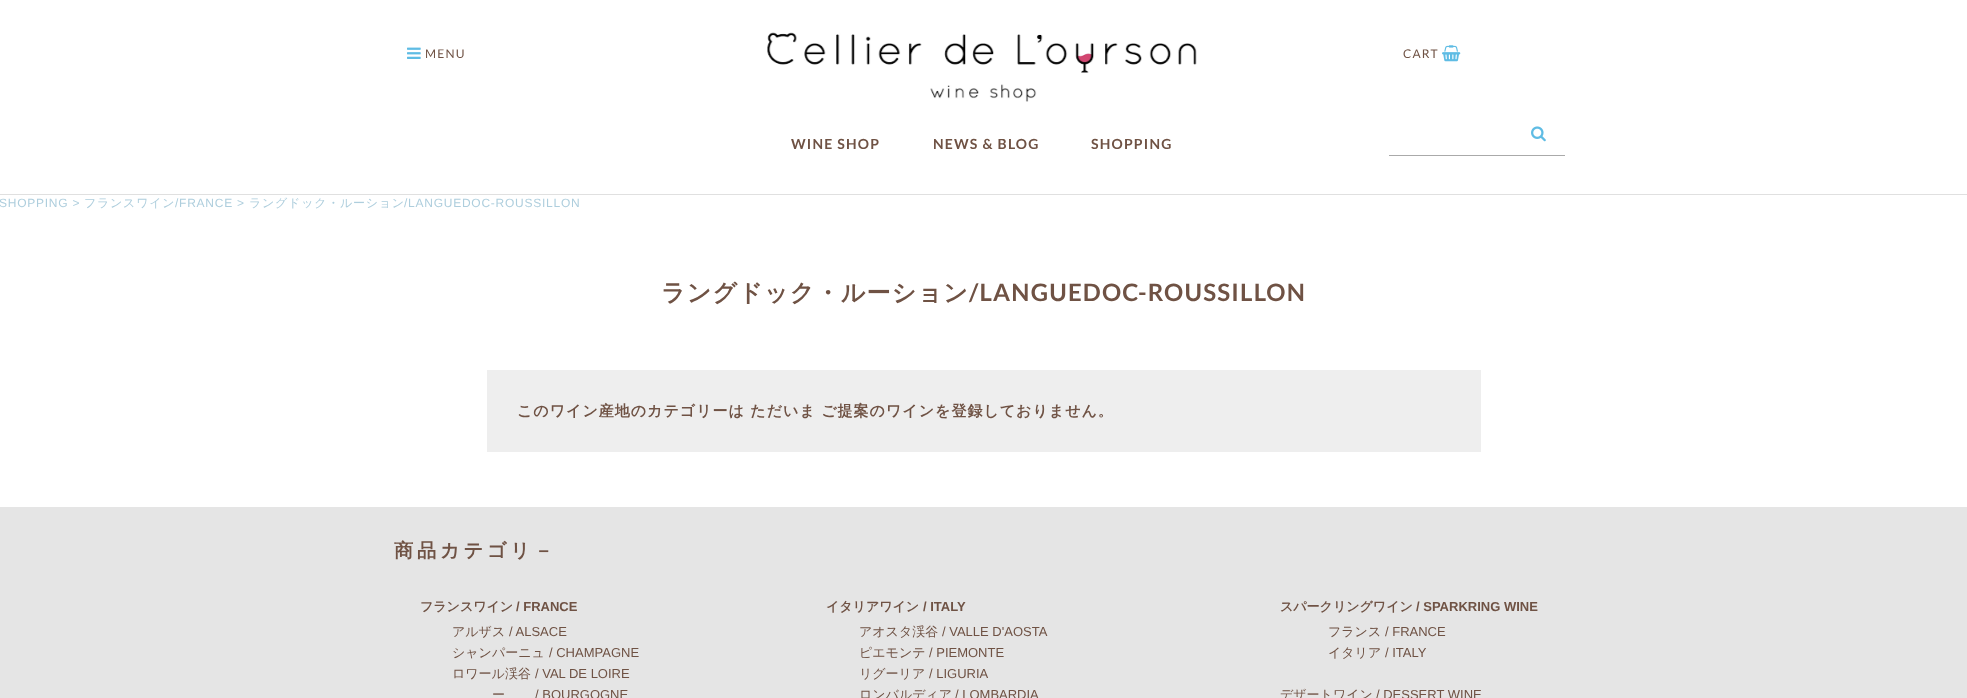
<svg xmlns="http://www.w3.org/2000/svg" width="1967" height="698">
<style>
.a{font:12px Lato;letter-spacing:1.2px;fill:#6f5244}
.b{font:bold 14px Lato;letter-spacing:1.2px;fill:#6f5244}
.c{font:12px Liberation Sans;letter-spacing:0.75px;fill:#aecedd}
.d{font:500 12px WenQuanYi Zen Hei;letter-spacing:0.75px;fill:#aecedd}
.e{font:bold 24px WenQuanYi Zen Hei;letter-spacing:1.2px;fill:#6f5244}
.f{font:bold 24px Lato;letter-spacing:1.2px;fill:#6f5244}
.g{font:bold 15px WenQuanYi Zen Hei;letter-spacing:1px;fill:#6f5244}
.h{font:bold 19.25px WenQuanYi Zen Hei;letter-spacing:3.75px;fill:#6f5244}
.i{font:bold 13px WenQuanYi Zen Hei;fill:#6f5244}
.j{font:bold 13px Liberation Sans;fill:#6f5244}
.k{font:500 13px WenQuanYi Zen Hei;fill:#6f5244}
.l{font:13px Liberation Sans;fill:#6f5244}
</style>
<rect width="100%" height="100%" fill="#fff"/>
<path fill="#e0e0e0" d="M0 194h1967v1H0z"/>
<image href="1.png" x="407" y="47" width="14" height="12"/>
<image href="2.png" x="767" y="32" width="430" height="70"/>
<image href="3.png" x="1442" y="45" width="19" height="17"/>
<image href="4.png" x="1531" y="126" width="15" height="16"/>
<path fill="#aaa" d="M1389 155h176v1H1389z"/>
<path fill="#eee" d="M487 370h994v82H487z"/>
<path fill="#e5e5e5" d="M0 507h1967v191H0z"/>
<text class="a" x="425" y="58">MENU</text>
<text class="a" x="1403" y="58">CART</text>
<text class="b" x="791" y="149">WINE SHOP</text>
<text class="b" x="933" y="149">NEWS &amp; BLOG</text>
<text class="b" x="1091" y="149">SHOPPING</text>
<text class="c" x="-1" y="207">SHOPPING &gt;</text>
<text class="d" x="84" y="207">フランスワイン</text>
<text class="c" x="175" y="207">/FRANCE &gt;</text>
<text class="d" x="249" y="207">ラングドック・ルーション</text>
<text class="c" x="404" y="207">/LANGUEDOC-ROUSSILLON</text>
<text class="e" x="661" y="301">ラングドック・ルーション</text>
<text class="f" x="969" y="301">/LANGUEDOC-ROUSSILLON</text>
<text class="g" x="517" y="416">このワイン産地のカテゴリーは ただいま ご提案のワインを登録しておりません。</text>
<text class="h" x="394" y="557">商品カテゴリ－</text>
<text class="i" x="420" y="611">フランスワイン</text>
<text class="j" x="516" y="611">/ FRANCE</text>
<text class="k" x="452" y="636">アルザス</text>
<text class="l" x="509" y="636">/ ALSACE</text>
<text class="k" x="452" y="657">シャンパーニュ</text>
<text class="l" x="549" y="657">/ CHAMPAGNE</text>
<text class="k" x="452" y="678">ロワール渓谷</text>
<text class="l" x="535" y="678">/ VAL DE LOIRE</text>
<text class="k" x="492" y="699">ー</text>
<text class="l" x="535" y="699">/ BOURGOGNE</text>
<text class="i" x="826" y="611">イタリアワイン</text>
<text class="j" x="923" y="611">/ ITALY</text>
<text class="k" x="859" y="636">アオスタ渓谷</text>
<text class="l" x="942" y="636">/ VALLE D'AOSTA</text>
<text class="k" x="859" y="657">ピエモンテ</text>
<text class="l" x="929" y="657">/ PIEMONTE</text>
<text class="k" x="859" y="678">リグーリア</text>
<text class="l" x="929" y="678">/ LIGURIA</text>
<text class="k" x="859" y="699">ロンバルディア</text>
<text class="l" x="955" y="699">/ LOMBARDIA</text>
<text class="i" x="1280" y="611">スパークリングワイン</text>
<text class="j" x="1416" y="611">/ SPARKRING WINE</text>
<text class="k" x="1328" y="636">フランス</text>
<text class="l" x="1385" y="636">/ FRANCE</text>
<text class="k" x="1328" y="657">イタリア</text>
<text class="l" x="1385" y="657">/ ITALY</text>
<text class="k" x="1280" y="699">デザートワイン</text>
<text class="l" x="1376" y="699">/ DESSERT WINE</text>
</svg>
